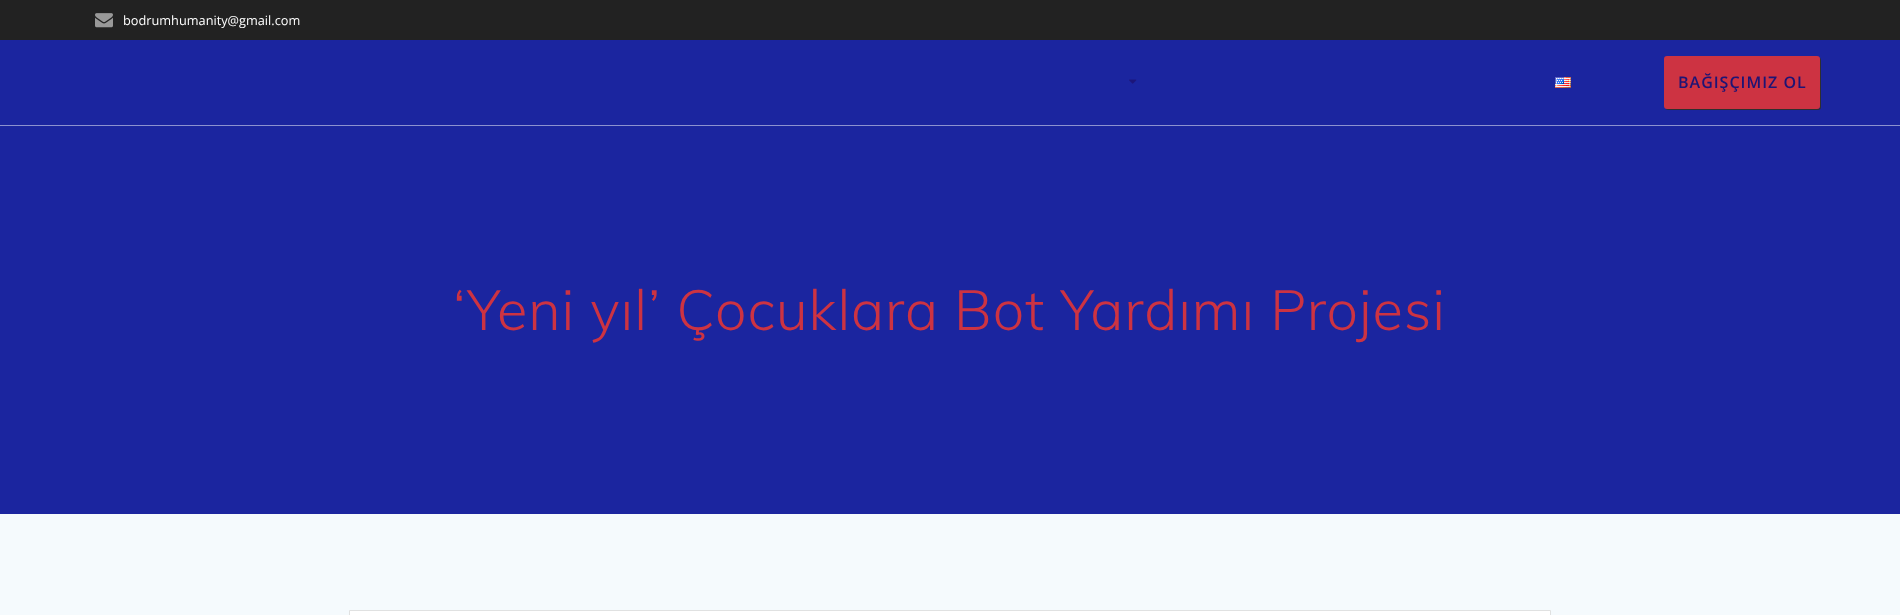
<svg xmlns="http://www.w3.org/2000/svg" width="1900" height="615">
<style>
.a{font:12.75px Open Sans;fill:#fff}
.b{font:600 16px Open Sans;letter-spacing:1px;fill:#1d1475}
.c{font:300 56px Muli;letter-spacing:0.9px;fill:#cd3342}
</style>
<rect width="100%" height="100%" fill="#1b259f"/>
<path fill="#222" d="M0 0h1900v40H0z"/>
<image href="1.png" x="95" y="13" width="18" height="15"/>
<path fill="#8d92cf" d="M0 125h1900v1H0z"/>
<image href="2.png" x="1129" y="79" width="8" height="5"/>
<image href="3.png" x="1555" y="77" width="16" height="11"/>
<path fill="#2f2f2f" d="M1665 109c1 0 2 1 3 1h150c2 0 3-1 3-3v-47c0-1-1-2-1-3v2v47c0 2-1 3-3 3h-150z"/>
<rect fill="#cd3342" x="1664" y="56" width="156" height="53" rx="3"/>
<path fill="#f5fafd" d="M0 514h1900v101H0z"/>
<path fill="#fff" stroke="#e0e1e1" d="M349.5 610.5h1201v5H349.5z"/>
<text class="a" x="123" y="25">bodrumhumanity@gmail.com</text>
<text class="b" x="1678" y="88">BAĞIŞÇIMIZ OL</text>
<text class="c" x="453" y="330">‘Yeni yıl’ Çocuklara Bot Yardımı Projesi</text>
</svg>
